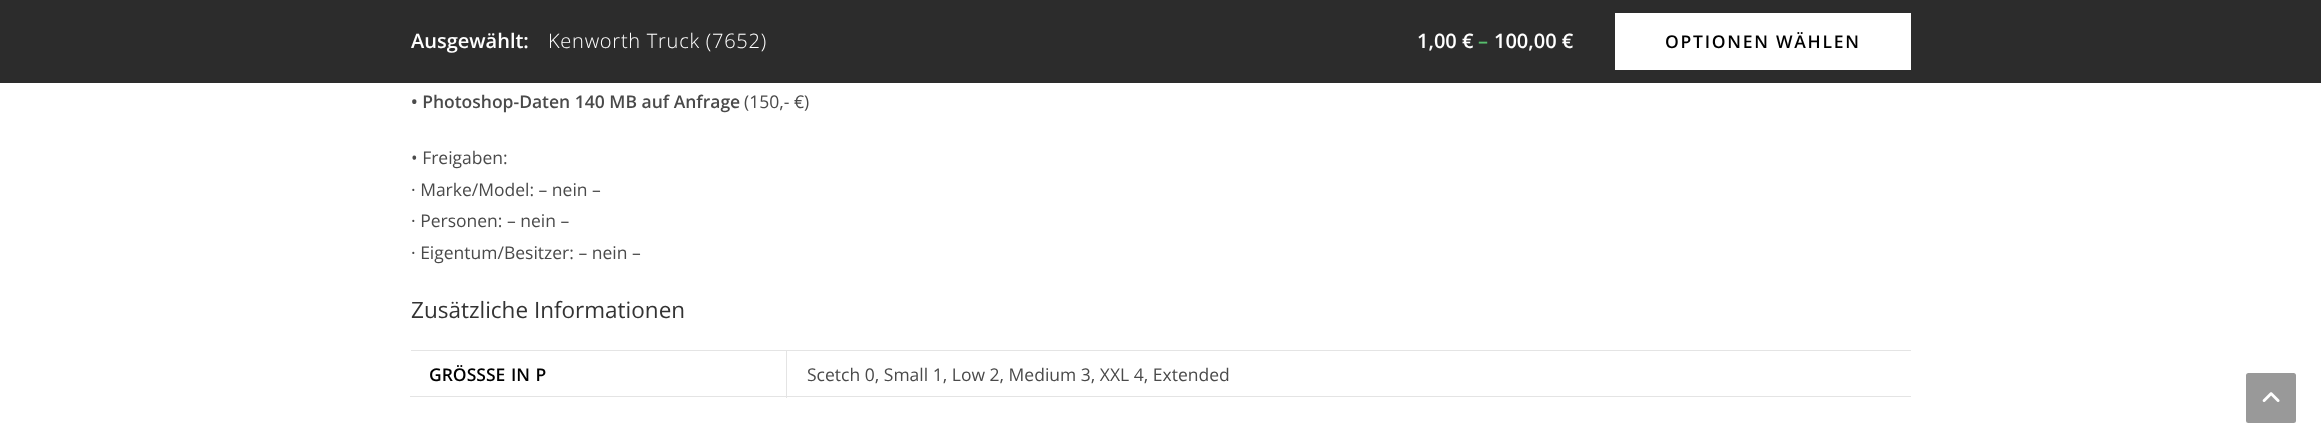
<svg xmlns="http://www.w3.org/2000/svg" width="2321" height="447">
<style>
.a{font:600 20px Open Sans;fill:#fff}
.b{font:300 20px Open Sans;letter-spacing:0.75px;fill:#fff}
.c{font:600 20px Open Sans;fill:#57bf6d}
.d{font:600 17.5px Open Sans;letter-spacing:1.75px;fill:#000}
.e{font:600 17.5px Open Sans;fill:#4a4a4a}
.f{font:17.5px Open Sans;fill:#4a4a4a}
.g{font:22.5px Open Sans;fill:#333}
.h{font:600 17.5px Open Sans;fill:#000}
</style>
<rect width="100%" height="100%" fill="#fff"/>
<path fill="#2c2c2c" d="M0 0h2321v83H0z"/>
<path fill="#fff" d="M1615 13h296v57H1615z"/>
<path fill="#e4e4e4" d="M411 350h1500v1H411z"/>
<path fill="#e4e4e4" d="M786 396h1125v1H786z"/>
<path fill="#e4e4e4" d="M786 350h1v48H786z"/>
<path fill="#e4e4e4" d="M410 396h378v1H410z"/>
<rect fill="#999" x="2246" y="373" width="50" height="50" rx="2.5"/>
<image href="1.png" x="2262" y="392" width="18" height="10"/>
<text class="a" x="411" y="48">Ausgewählt:</text>
<text class="b" x="548" y="48">Kenworth Truck (7652)</text>
<text class="a" x="1417" y="48">1,00 €</text>
<text class="c" x="1478" y="48">–</text>
<text class="a" x="1494" y="48">100,00 €</text>
<text class="d" x="1665" y="48">OPTIONEN WÄHLEN</text>
<text class="e" x="411" y="108">• Photoshop-Daten 140 MB auf Anfrage</text>
<text class="f" x="744" y="108">(150,- €)</text>
<text class="f" x="411" y="164">• Freigaben:</text>
<text class="f" x="411" y="196">· Marke/Model: – nein –</text>
<text class="f" x="411" y="227">· Personen: – nein –</text>
<text class="f" x="411" y="259">· Eigentum/Besitzer: – nein –</text>
<text class="g" x="411" y="318">Zusätzliche Informationen</text>
<text class="h" x="429" y="381">GRÖSS</text>
<text class="h" x="486" y="381" word-spacing="1">SE IN P</text>
<text class="f" x="807" y="381">Scetch 0, Small 1, Low 2, Medium 3, XXL 4, Extended</text>
</svg>
